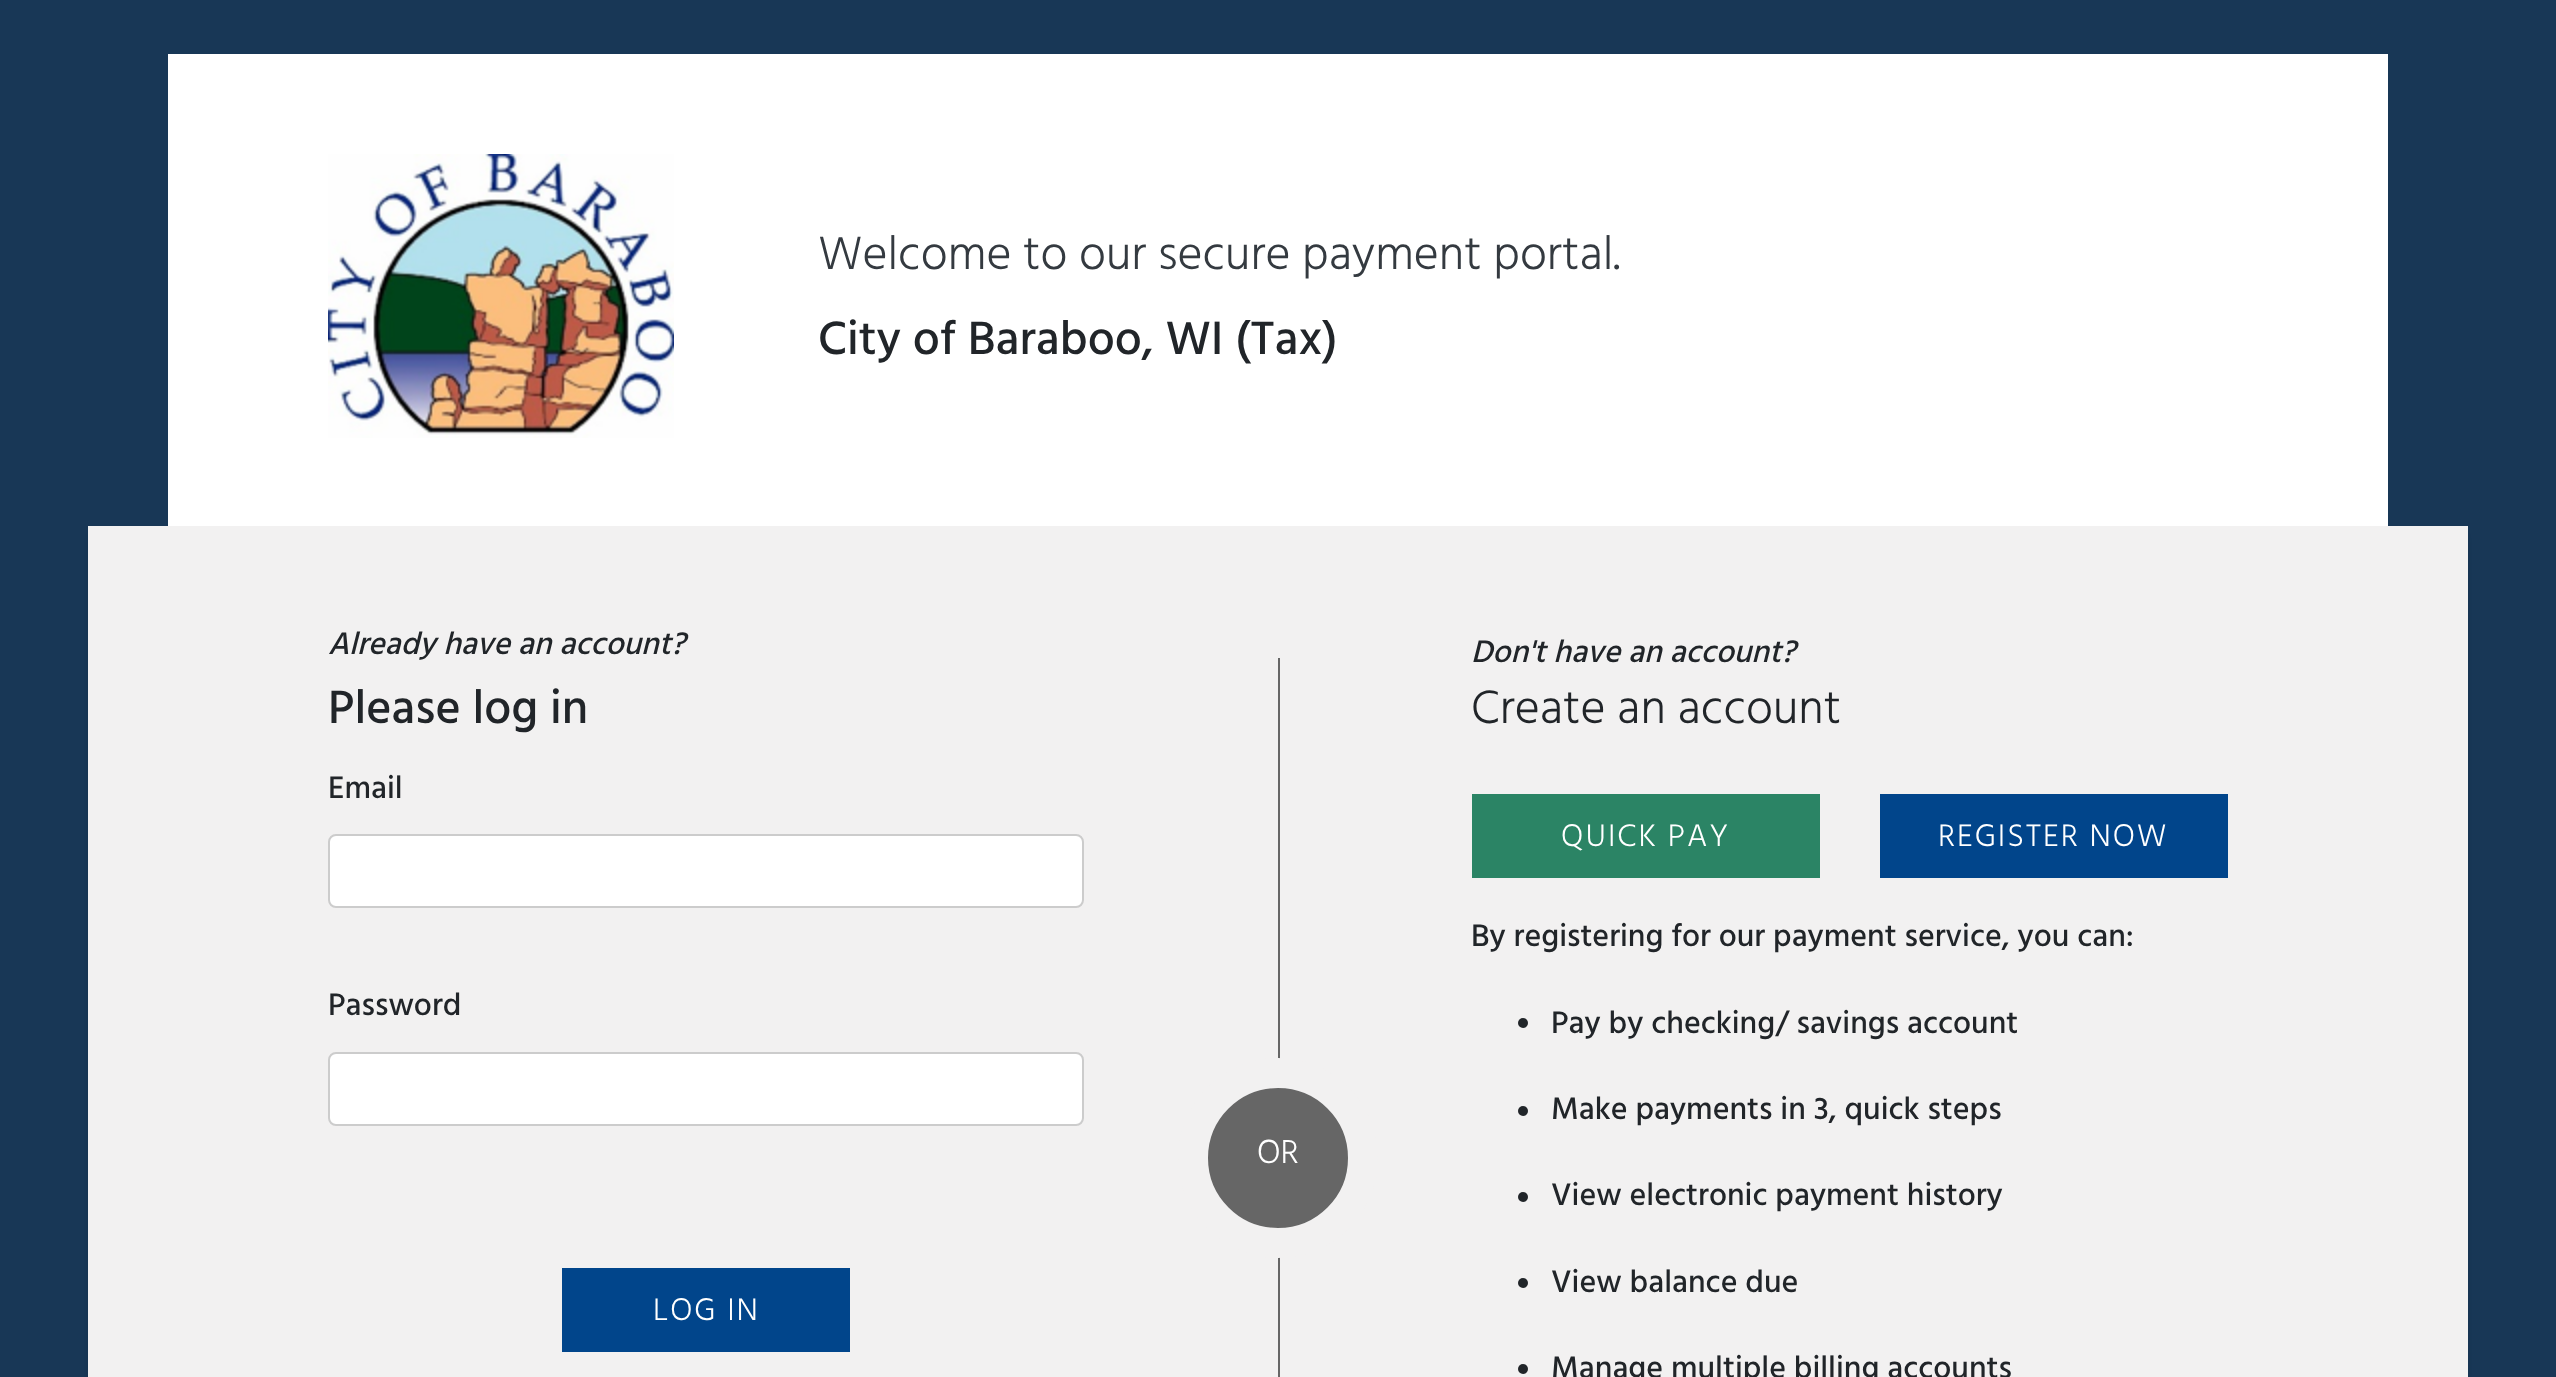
<svg xmlns="http://www.w3.org/2000/svg" width="2556" height="1377">
<style>
.a{font:300 48px Hind Madurai;fill:#343a40}
.b{font:500 48px Hind Madurai;fill:#212529}
.c{font:italic 500 32px Hind Madurai;fill:#212529}
.d{font:500 32px Hind Madurai;fill:#212529}
.e{font:300 32px Hind Madurai;letter-spacing:2px;fill:#fff}
.f{font:300 34px Hind Madurai;fill:#fff}
.g{font:300 48px Hind Madurai;fill:#212529}
</style>
<rect width="100%" height="100%" fill="#183756"/>
<path fill="#fff" d="M168 54h2220v472H168z"/>
<image href="1.png" x="328" y="154" width="346" height="284"/>
<path fill="#00000099" filter="blur(4px)" d="M94 538h2368v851H94z"/>
<path fill="#f2f1f1" d="M88 526h2380v851H88z"/>
<rect fill="#fff" stroke="#ccc" stroke-width="2" x="329" y="835" width="754" height="72" rx="7"/>
<rect fill="#fff" stroke="#ccc" stroke-width="2" x="329" y="1053" width="754" height="72" rx="7"/>
<path fill="#01458b" d="M562 1268h288v84H562z"/>
<path fill="#666" d="M1278 658h2v719H1278z"/>
<circle fill="#666" stroke="#f2f1f1" stroke-width="30" cx="1278" cy="1158" r="85"/>
<path fill="#2b8465" d="M1472 794h348v84H1472z"/>
<path fill="#01458b" d="M1880 794h348v84H1880z"/>
<circle fill="#212529" cx="1523" cy="1023" r="5"/>
<circle fill="#212529" cx="1523" cy="1111" r="5"/>
<circle fill="#212529" cx="1523" cy="1197" r="5"/>
<circle fill="#212529" cx="1523" cy="1283" r="5"/>
<circle fill="#212529" cx="1523" cy="1369" r="5"/>
<text class="a" x="818" y="269">Welcome to our secure payment portal.</text>
<text class="b" x="818" y="354">City of Baraboo, WI (Tax)</text>
<text class="c" x="328" y="654">Already have an account?</text>
<text class="b" x="328" y="723">Please log in</text>
<text class="d" x="328" y="798">Email</text>
<text class="d" x="328" y="1015">Password</text>
<text class="e" x="653" y="1320">LOG IN</text>
<text class="f" x="1257" y="1163">OR</text>
<text class="c" x="1471" y="662">Don't have an account?</text>
<text class="g" x="1471" y="723">Create an account</text>
<text class="e" x="1561" y="846">QUICK PAY</text>
<text class="e" x="1938" y="846">REGISTER NOW</text>
<text class="d" x="1471" y="946">By registering for our payment service, you can:</text>
<text class="d" x="1551" y="1033">Pay by checking/ savings account</text>
<text class="d" x="1551" y="1119">Make payments in 3, quick steps</text>
<text class="d" x="1551" y="1205">View electronic payment history</text>
<text class="d" x="1551" y="1292">View balance due</text>
<text class="d" x="1551" y="1378">Manage multiple billing accounts</text>
</svg>
